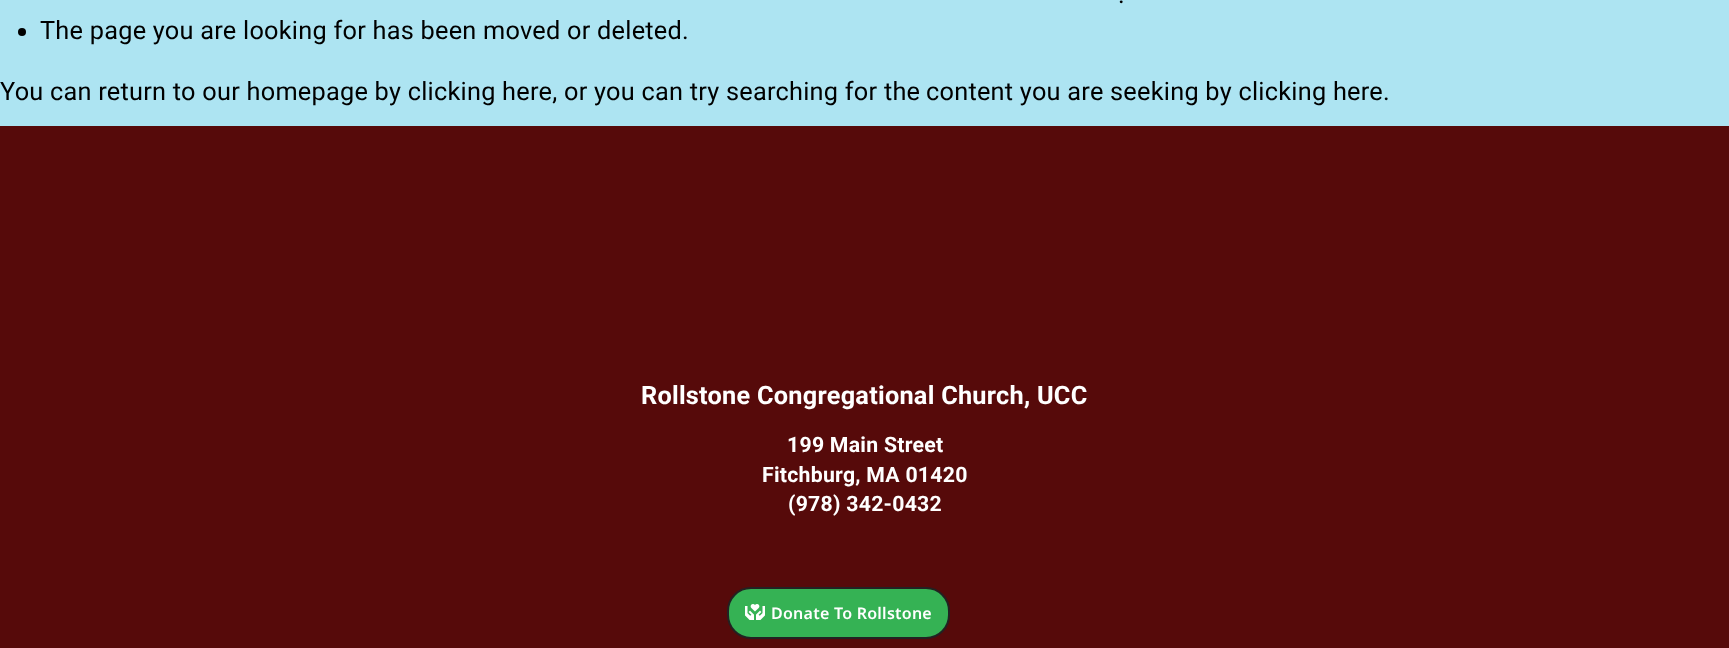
<svg xmlns="http://www.w3.org/2000/svg" width="1729" height="648">
<style>
.a{font:25.3px Roboto;letter-spacing:0.25px;fill:#000}
.b{font:bold 25.3px Roboto;letter-spacing:0.25px;fill:#fff}
.c{font:bold 21.25px Roboto;letter-spacing:0.25px;fill:#fff}
.d{font:600 16px Noto Sans;letter-spacing:0.25px;fill:#fff}
</style>
<rect width="100%" height="100%" fill="#ade4f2"/>
<circle fill="#000" cx="22" cy="32" r="4"/>
<path fill="#560a0a" d="M0 126h1729v522H0z"/>
<rect fill="#35b254" stroke="#222" stroke-width="2" x="728" y="588" width="221" height="50" rx="23"/>
<image href="1.png" x="745" y="604" width="20" height="16"/>
<text class="a" x="1118" y="3">.</text>
<text class="a" x="40" y="39">The page you are looking for has been moved or deleted.</text>
<text class="a" x="0" y="100">You can return to our homepage by clicking here, or you can try searching for the</text>
<text class="a" x="926" y="100">content you are seeking by clicking here.</text>
<text class="b" x="641" y="404">Rollstone Congregational Church, UCC</text>
<text class="c" x="787" y="452">199 Main Street</text>
<text class="c" x="762" y="482">Fitchburg, MA 01420</text>
<text class="c" x="788" y="511">(978) 342-0432</text>
<text class="d" x="771" y="619">Donate To Rollstone</text>
</svg>
